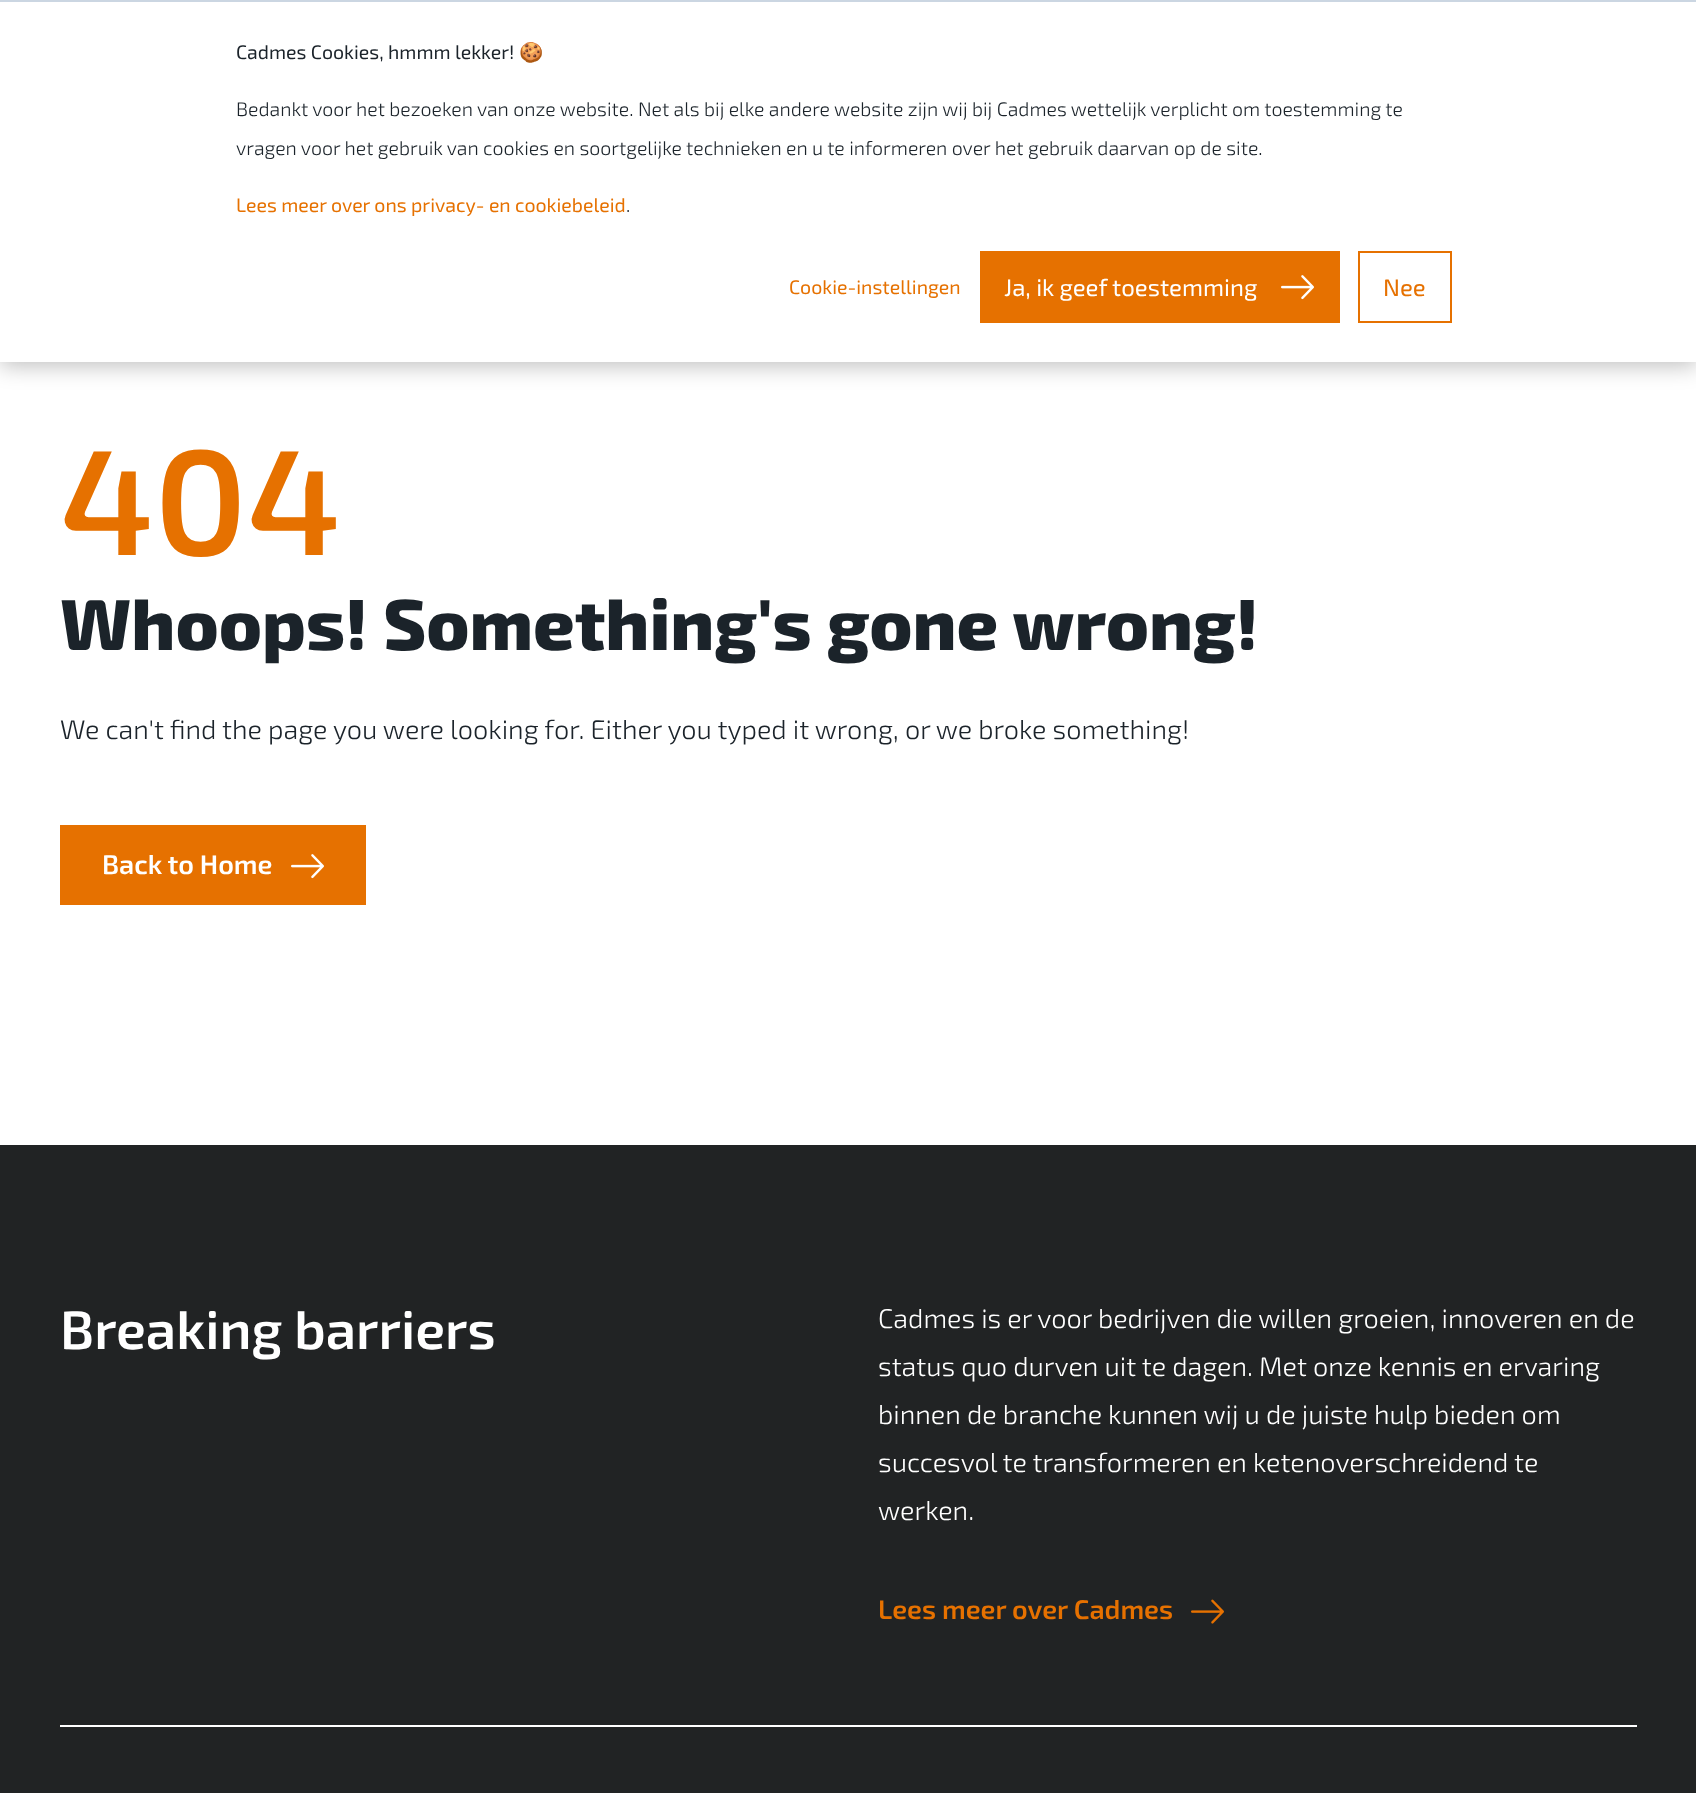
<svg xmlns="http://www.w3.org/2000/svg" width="1696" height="1793">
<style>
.a{font:19.5px 'Exo 2';fill:#1b232a}
.b{font:19.5px Noto Color Emoji;fill:#1b232a}
.c{font:300 19.5px 'Exo 2';fill:#1b232a}
.d{font:19.5px 'Exo 2';fill:#e67100}
.e{font:24px 'Exo 2';fill:#fff}
.f{font:24px 'Exo 2';fill:#e67100}
.g{font:600 150px 'Exo 2';fill:#e67100}
.h{font:800 72px 'Exo 2';fill:#1b232a}
.i{font:300 27px 'Exo 2';fill:#1b232a}
.j{font:600 27px 'Exo 2';fill:#fff}
.k{font:600 54px 'Exo 2';fill:#fff}
.l{font:300 27px 'Exo 2';fill:#fff}
.m{font:600 27px 'Exo 2';fill:#e67100}
</style>
<rect width="100%" height="100%" fill="#fff"/>
<path fill="#00000040" filter="blur(11px)" d="M0 5h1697v361H0z"/>
<path fill="#fff" d="M0 2h1696v360H0z"/>
<path fill="#cbd6e2" d="M0 0h1696v2H0z"/>
<path fill="#e67100" d="M980 251h360v72H980z"/>
<image href="1.png" x="1281" y="275" width="33" height="25"/>
<path fill="none" stroke="#e67100" stroke-width="2" d="M1359 252h92v70H1359z"/>
<path fill="#e67100" d="M60 825h306v80H60z"/>
<image href="1.png" x="291" y="854" width="33" height="25"/>
<path fill="#212324" d="M0 1145h1696v648H0z"/>
<path fill="#fff" d="M60 1725h1577v2H60z"/>
<image href="2.png" x="1191" y="1599" width="33" height="25"/>
<text class="a" x="236" y="59">Cadmes Cookies, hmmm lekker!</text>
<text class="b" x="519" y="59">🍪</text>
<text class="c" x="236" y="116">Bedankt voor het bezoeken van onze website. Net als bij elke andere website zijn wij bij Cadmes wettelijk verplicht om toestemming te</text>
<text class="c" x="236" y="155">vragen voor het gebruik van cookies en soortgelijke technieken en u te informeren over het gebruik daarvan op de site.</text>
<text class="d" x="236" y="212">Lees meer over ons privacy- en cookiebeleid</text>
<text class="c" x="626" y="212">.</text>
<text class="d" x="789" y="294">Cookie-instellingen</text>
<text class="e" x="1004" y="296">Ja, ik geef toestemming</text>
<text class="f" x="1383" y="296">Nee</text>
<text class="g" x="60" y="555">404</text>
<text class="h" x="60" y="650">Whoops! Something's gone wrong!</text>
<text class="i" x="60" y="739">We can't find the page you were looking for. Either you typed it wrong, or we broke something!</text>
<text class="j" x="102" y="874">Back to Home</text>
<text class="k" x="60" y="1349">Breaking barriers</text>
<text class="l" x="878" y="1328">Cadmes is er voor bedrijven die willen groeien, innoveren en de</text>
<text class="l" x="878" y="1376">status quo durven uit te dagen. Met onze kennis en ervaring</text>
<text class="l" x="878" y="1424">binnen de branche kunnen wij u de juiste hulp bieden om</text>
<text class="l" x="878" y="1472">succesvol te transformeren en ketenoverschreidend te</text>
<text class="l" x="878" y="1520">werken.</text>
<text class="m" x="878" y="1619">Lees meer over Cadmes</text>
</svg>
